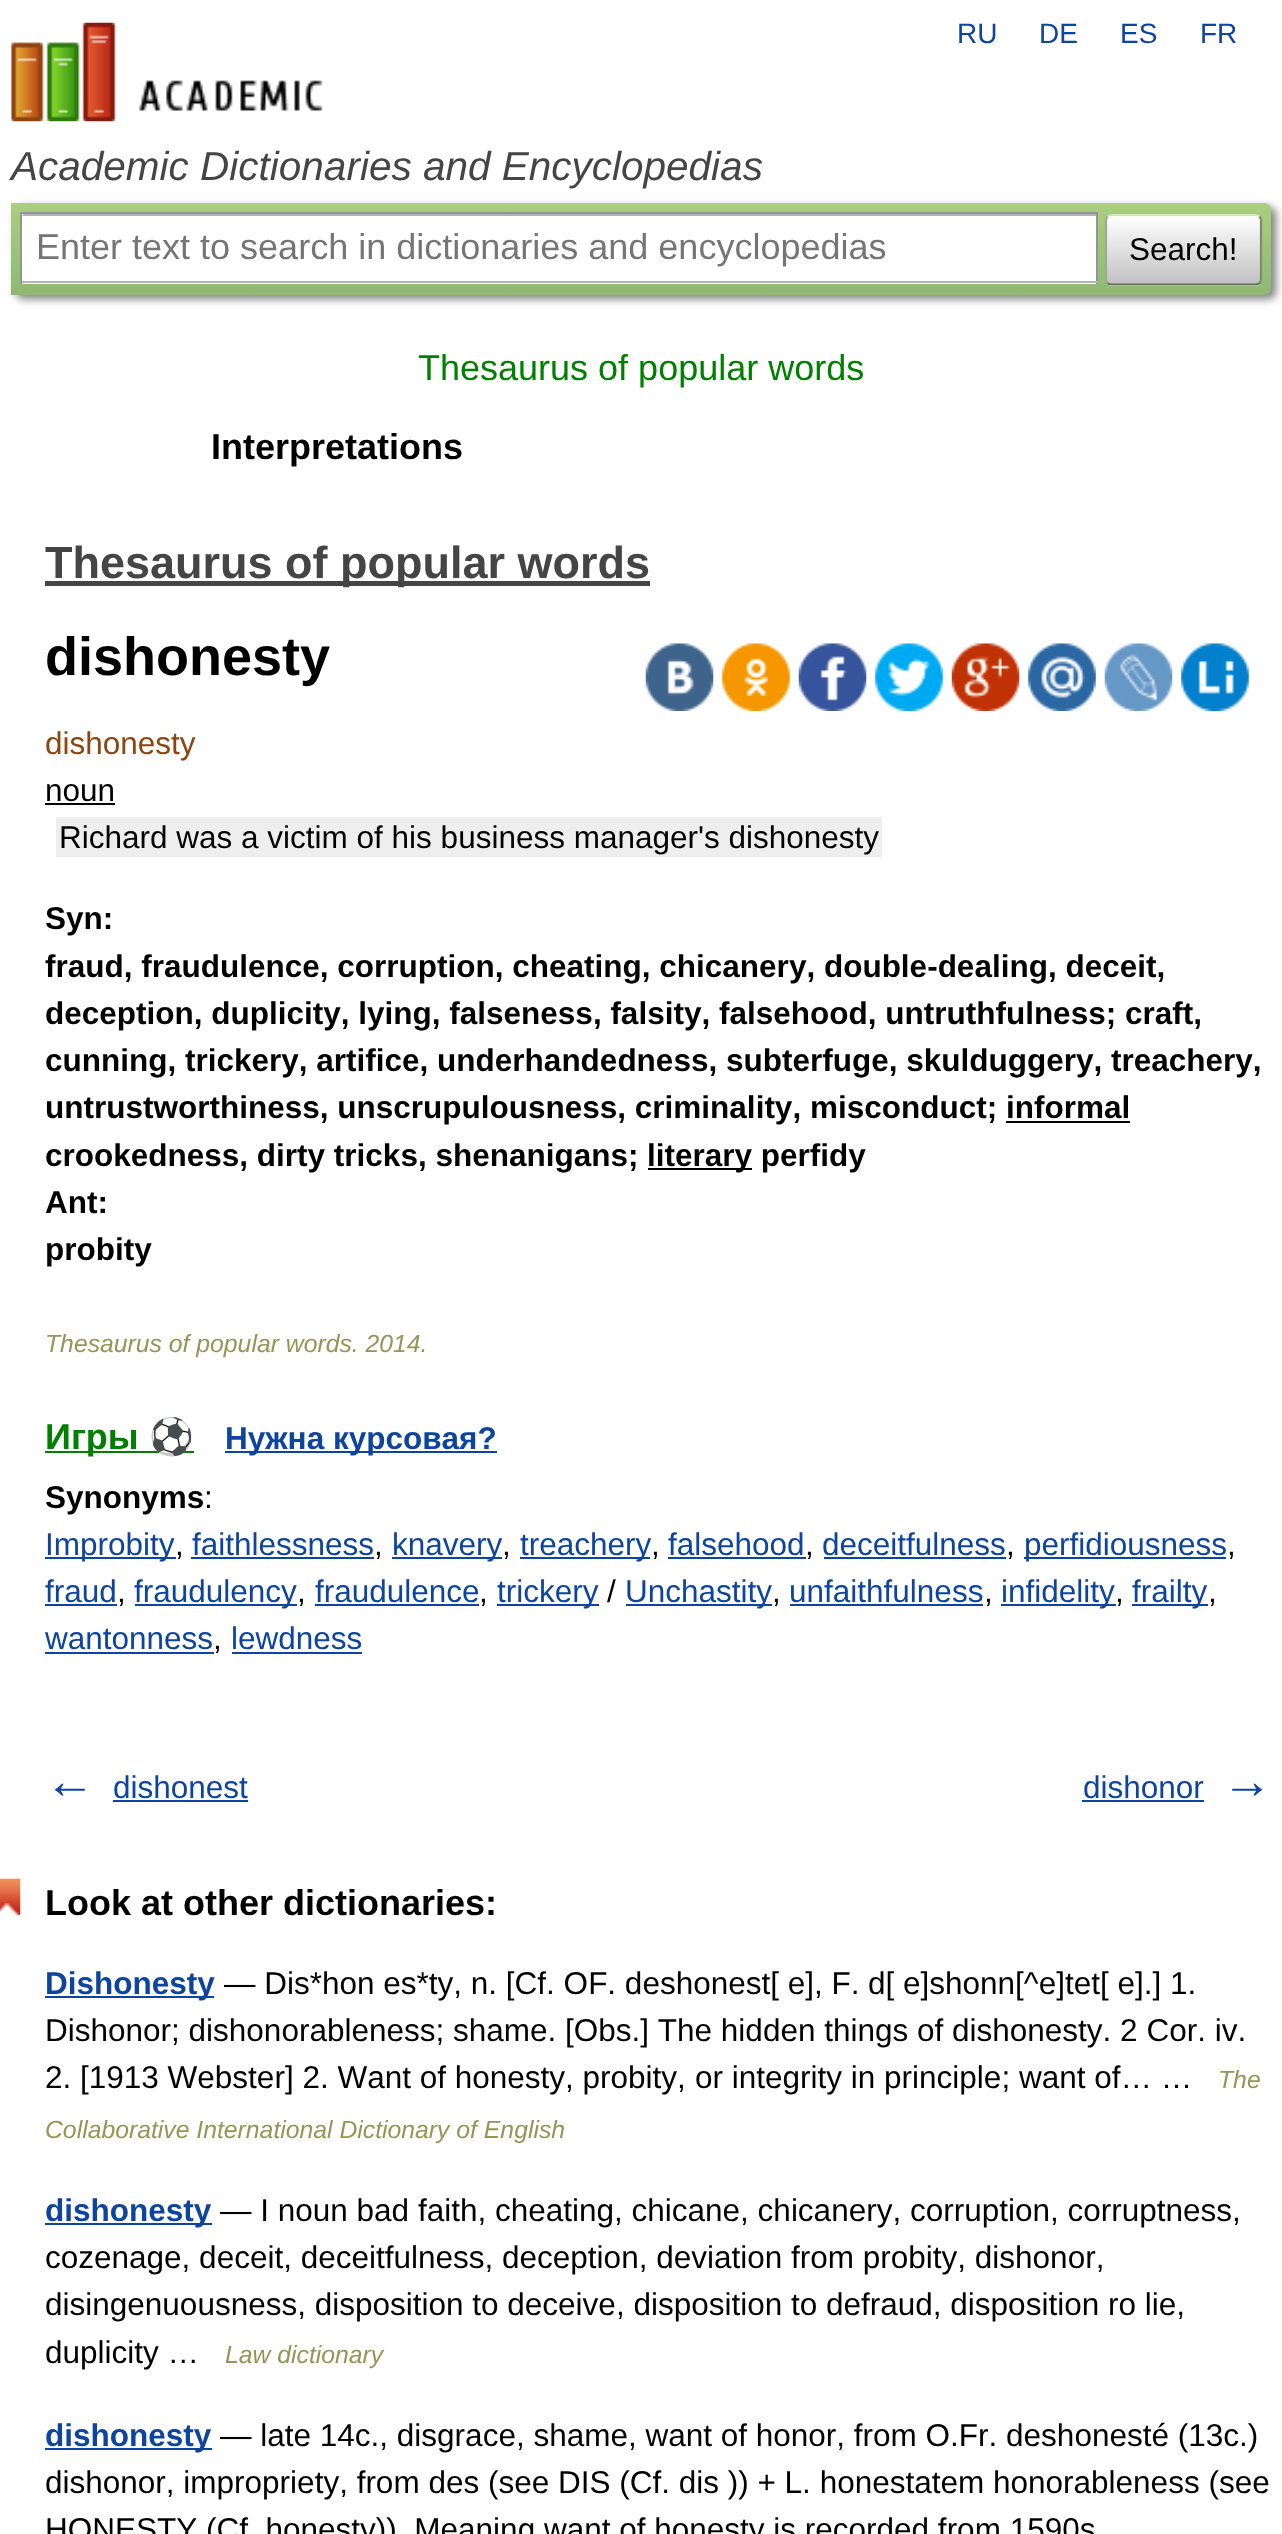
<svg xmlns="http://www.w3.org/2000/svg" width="1282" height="2534">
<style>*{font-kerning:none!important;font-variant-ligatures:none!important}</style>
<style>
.a{font:28px Liberation Sans;fill:#0d44a0}
.b{font:italic 40.5px Liberation Sans;fill:#454545}
.c{font:36px Liberation Sans;fill:#757575}
.d{font:31.5px Liberation Sans;fill:#000}
.e{font:36px Liberation Sans;fill:#008000}
.f{font:bold 36px Liberation Sans;fill:#000}
.g{font:bold 45px Liberation Sans;fill:#454545}
.h{font:bold 54px Liberation Sans;fill:#000}
.i{font:31.5px Liberation Sans;fill:#8b4513}
.j{font:bold 31.5px Liberation Sans;fill:#000}
.k{font:italic 24.75px Liberation Sans;fill:#939756}
.l{font:bold 36px Liberation Sans;fill:#008000}
.m{font:bold 36px Noto Color Emoji;fill:#008000}
.n{font:bold 31.5px Liberation Sans;fill:#0d44a0}
.o{font:31.5px Liberation Sans;fill:#0d44a0}
.p{font:bold 50px Liberation Sans;fill:#0d44a0}
</style>
<defs>
<linearGradient id="g1" gradientUnits="userSpaceOnUse" x1="641" y1="202" x2="641" y2="295"><stop offset="0" stop-color="#abcf7e"/><stop offset="1" stop-color="#8eb874"/></linearGradient>
<clipPath id="clip1"><rect x="1105" y="214" width="157" height="72" rx="7"/></clipPath>
<linearGradient id="g2" gradientUnits="userSpaceOnUse" x1="1184" y1="216" x2="1184" y2="284"><stop offset="0" stop-color="#fff"/><stop offset="1" stop-color="#c1c1c1"/></linearGradient>
<linearGradient id="g3" gradientUnits="userSpaceOnUse" x1="1184" y1="284" x2="1184" y2="351"><stop offset="0" stop-color="#fff"/><stop offset="1" stop-color="#c1c1c1"/></linearGradient>
</defs>
<rect width="100%" height="100%" fill="#fff"/>
<image href="1.png" x="11" y="22" width="312" height="100"/>
<rect fill="#00000080" filter="blur(4.5px)" x="16" y="207" width="1260" height="92" rx="7"/>
<path fill="url(#g1)" d="M11 203h1253c4 0 7 3 7 7v78c0 4-3 7-7 7h-1253z"/>
<path fill="#fff" d="M22 214h1074v70H22z"/>
<path fill="#b3b3b3" d="M23 214h1073v2H23z"/>
<path fill="#949494" d="M20 212h1078v2H20z"/>
<path fill="#949494" d="M1096 212h2v72H1096z"/>
<path fill="#b4b4b4" d="M20 281h1078v2H20z"/>
<path fill="#949494" d="M20 212h2v72H20z"/>
<g clip-path="url(#clip1)">
<path fill="url(#g2)" d="M1105 216h157v68H1105z"/>
<path fill="url(#g3)" d="M1105 284h157v2H1105z"/>
</g>
<path fill="none" stroke="#d1e4bc" stroke-width="2.2" d="M1107.5 216.5c1-1 2.5-1.5 4-1.5h144c1.5 0 3 .5 4 1.5"/>
<path fill="none" stroke="#7a8e69" stroke-width="2.2" d="M1259.5 216.5c1 1 1.5 2.5 1.5 4v58.5c0 1.5-.5 3-1.5 4"/>
<path fill="none" stroke="#5d7250" stroke-width="2.2" d="M1259.5 283c-1 1-2.5 1.5-4 1.5h-144c-1.5 0-3-.5-4-1.5"/>
<path fill="none" stroke="#9aae89" stroke-width="2.2" d="M1107.5 283c-1-1-1.5-2.5-1.5-4v-58.5c0-1.5 .5-3 1.5-4"/>
<path fill="#454545" d="M45 581h605v5H45z"/>
<image href="2.png" x="645" y="643" width="69" height="68"/>
<image href="3.png" x="722" y="643" width="68" height="68"/>
<image href="4.png" x="798" y="643" width="69" height="68"/>
<image href="5.png" x="875" y="643" width="68" height="68"/>
<image href="6.png" x="951" y="643" width="69" height="68"/>
<image href="7.png" x="1028" y="643" width="68" height="68"/>
<image href="8.png" x="1104" y="643" width="69" height="68"/>
<image href="9.png" x="1181" y="643" width="68" height="68"/>
<path fill="#000" d="M45 803h70v2H45z"/>
<path fill="#eee" d="M56 817h826v40H56z"/>
<path fill="#000" d="M1006 1121h124v2H1006z"/>
<path fill="#000" d="M648 1168h104v2H648z"/>
<path fill="#008000" d="M45 1451h149v2H45z"/>
<path fill="#0d44a0" d="M225 1451h272v2H225z"/>
<path fill="#0d44a0" d="M45 1557h131v2H45z"/>
<path fill="#0d44a0" d="M191 1557h183v2H191z"/>
<path fill="#0d44a0" d="M392 1557h110v2H392z"/>
<path fill="#0d44a0" d="M520 1557h130v2H520z"/>
<path fill="#0d44a0" d="M668 1557h138v2H668z"/>
<path fill="#0d44a0" d="M824 1557h182v2H824z"/>
<path fill="#0d44a0" d="M1024 1557h202v2H1024z"/>
<path fill="#0d44a0" d="M45 1604h72v2H45z"/>
<path fill="#0d44a0" d="M135 1604h162v2H135z"/>
<path fill="#0d44a0" d="M315 1604h164v2H315z"/>
<path fill="#0d44a0" d="M497 1604h102v2H497z"/>
<path fill="#0d44a0" d="M626 1604h146v2H626z"/>
<path fill="#0d44a0" d="M790 1604h193v2H790z"/>
<path fill="#0d44a0" d="M1001 1604h115v2H1001z"/>
<path fill="#0d44a0" d="M1132 1604h76v2H1132z"/>
<path fill="#0d44a0" d="M45 1652h169v2H45z"/>
<path fill="#0d44a0" d="M232 1652h130v2H232z"/>
<path fill="#0d44a0" d="M113 1800h135v2H113z"/>
<path fill="#0d44a0" d="M1082 1800h122v2H1082z"/>
<image href="10.png" x="0" y="1878" width="21" height="37"/>
<path fill="#0d44a0" d="M45 1996h169v2H45z"/>
<path fill="#0d44a0" d="M45 2223h167v2H45z"/>
<path fill="#0d44a0" d="M45 2448h167v2H45z"/>
<text class="a" x="957" y="43">RU</text>
<text class="a" x="1039" y="43">DE</text>
<text class="a" x="1120" y="43">ES</text>
<text class="a" x="1200" y="43">FR</text>
<text class="b" x="11" y="180">Academic Dictionaries and Encyclopedias</text>
<text class="c" x="36" y="259">Enter text to search in dictionaries and encyclopedias</text>
<text class="d" x="1129" y="260">Search!</text>
<text class="e" x="418" y="380">Thesaurus of popular words</text>
<text class="f" x="211" y="459">Interpretations</text>
<text class="g" x="45" y="578">Thesaurus of popular words</text>
<text class="h" x="45" y="675">dishonesty</text>
<text class="i" x="45" y="754">dishonesty</text>
<text class="d" x="45" y="801">noun</text>
<text class="d" x="59" y="848">Richard was a victim of his business manager's dishonesty</text>
<text class="j" x="45" y="929">Syn:</text>
<text class="j" x="45" y="977">fraud, fraudulence, corruption, cheating, chicanery, double-dealing, deceit,</text>
<text class="j" x="45" y="1024">deception, duplicity, lying, falseness, falsity, falsehood, untruthfulness; craft,</text>
<text class="j" x="45" y="1071">cunning, trickery, artifice, underhandedness, subterfuge, skulduggery, treachery,</text>
<text class="j" x="45" y="1118">untrustworthiness, unscrupulousness, criminality, misconduct; informal</text>
<text class="j" x="45" y="1166">crookedness, dirty tricks, shenanigans;</text>
<text class="j" x="647" y="1166">literary perfidy</text>
<text class="j" x="45" y="1213">Ant:</text>
<text class="j" x="45" y="1260">probity</text>
<text class="k" x="45" y="1352">Thesaurus of popular words. 2014.</text>
<text class="l" x="45" y="1449">Игры</text>
<text class="m" x="149" y="1449">⚽</text>
<text class="n" x="225" y="1449">Нужна курсовая?</text>
<text class="j" x="45" y="1508">Synonyms</text>
<text class="d" x="204" y="1508">:</text>
<text class="o" x="45" y="1555">Improbity</text>
<text class="d" x="175" y="1555">,</text>
<text class="o" x="192" y="1555">faithlessness</text>
<text class="d" x="374" y="1555">,</text>
<text class="o" x="392" y="1555">knavery</text>
<text class="d" x="502" y="1555">,</text>
<text class="o" x="520" y="1555">treachery</text>
<text class="d" x="651" y="1555">,</text>
<text class="o" x="668" y="1555">falsehood</text>
<text class="d" x="805" y="1555">,</text>
<text class="o" x="822" y="1555">deceitfulness</text>
<text class="d" x="1006" y="1555">,</text>
<text class="o" x="1024" y="1555">perfidiousness</text>
<text class="d" x="1227" y="1555">,</text>
<text class="o" x="45" y="1602">fraud</text>
<text class="d" x="117" y="1602">,</text>
<text class="o" x="134" y="1602">fraudulency</text>
<text class="d" x="297" y="1602">,</text>
<text class="o" x="315" y="1602">fraudulence</text>
<text class="d" x="479" y="1602">,</text>
<text class="o" x="497" y="1602">trickery</text>
<text class="d" x="607" y="1602">/</text>
<text class="o" x="625" y="1602">Unchastity</text>
<text class="d" x="772" y="1602">,</text>
<text class="o" x="789" y="1602">unfaithfulness</text>
<text class="d" x="984" y="1602">,</text>
<text class="o" x="1001" y="1602">infidelity</text>
<text class="d" x="1115" y="1602">,</text>
<text class="o" x="1132" y="1602">frailty</text>
<text class="d" x="1208" y="1602">,</text>
<text class="o" x="45" y="1649">wantonness</text>
<text class="d" x="213" y="1649">,</text>
<text class="o" x="231" y="1649">lewdness</text>
<text class="p" x="45" y="1798">←</text>
<text class="o" x="113" y="1798">dishonest</text>
<text class="o" x="1083" y="1798">dishonor</text>
<text class="p" x="1222" y="1798">→</text>
<text class="f" x="45" y="1915">Look at other dictionaries:</text>
<text class="n" x="45" y="1994">Dishonesty</text>
<text class="d" x="224" y="1994">— Dis*hon es*ty, n. [Cf. OF. deshonest[ e], F.</text>
<text class="d" x="868" y="1994">d[ e]shonn[^e]tet[ e].] 1.</text>
<text class="d" x="45" y="2041">Dishonor; dishonorableness; shame. [Obs.] The hidden things of dishonesty. 2 Cor. iv.</text>
<text class="d" x="45" y="2088">2. [1913 Webster] 2. Want of honesty, probity,</text>
<text class="d" x="695" y="2088">or integrity in principle; want of… …</text>
<text class="k" x="1218" y="2088">The</text>
<text class="k" x="45" y="2138">Collaborative International Dictionary of English</text>
<text class="n" x="45" y="2221">dishonesty</text>
<text class="d" x="220" y="2221">— I noun bad faith, cheating, chicane, chicanery, corruption, corruptness,</text>
<text class="d" x="45" y="2268">cozenage, deceit, deceitfulness, deception, deviation from probity, dishonor,</text>
<text class="d" x="45" y="2315">disingenuousness, disposition to deceive, disposition to defraud, disposition ro lie,</text>
<text class="d" x="45" y="2363">duplicity …</text>
<text class="k" x="225" y="2363">Law dictionary</text>
<text class="n" x="45" y="2446">dishonesty</text>
<text class="d" x="220" y="2446">— late 14c., disgrace, shame, want of honor, from O.Fr. deshonesté (13c.)</text>
<text class="d" x="45" y="2493">dishonor, impropriety, from des (see DIS (Cf. dis )) + L. honestatem honorableness (see</text>
<text class="d" x="45" y="2540">HONESTY (Cf. honesty)). Meaning want of honesty is recorded from 1590s</text>
</svg>
